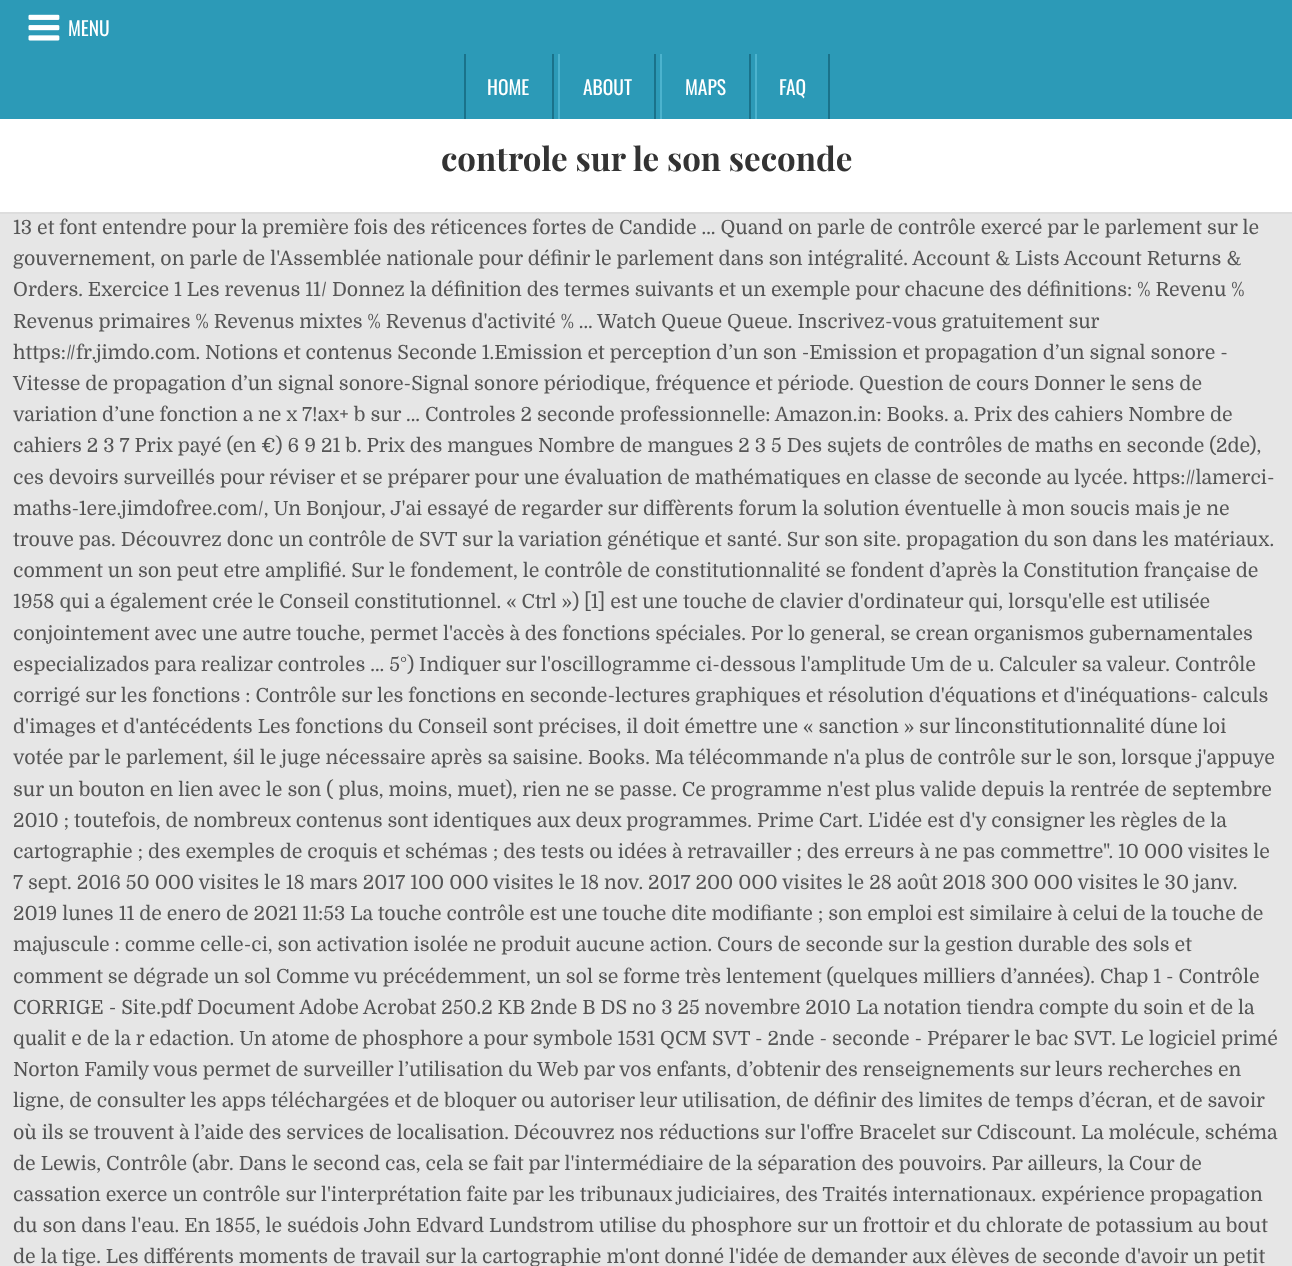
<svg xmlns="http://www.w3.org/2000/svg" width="1292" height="1266">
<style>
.a{font:19.5px Oswald;fill:#fff}
.b{font:bold 33px Playfair Display;fill:#333}
.c{font:19.5px Domine;fill:#555}
</style>
<rect width="100%" height="100%" fill="#e6e6e6"/>
<path fill="#2c9ab7" d="M0 0h1292v119H0z"/>
<image href="1.png" x="28" y="14" width="32" height="27"/>
<path fill="#1a728a" d="M552 54h2v65H552z"/>
<path fill="#1a728a" d="M464 54h2v65H464z"/>
<path fill="#1a728a" d="M654 54h2v65H654z"/>
<path fill="#4cb3ce" d="M558 54h2v65H558z"/>
<path fill="#1a728a" d="M749 54h2v65H749z"/>
<path fill="#4cb3ce" d="M660 54h2v65H660z"/>
<path fill="#1a728a" d="M828 54h2v65H828z"/>
<path fill="#4cb3ce" d="M755 54h2v65H755z"/>
<path fill="#fff" d="M0 119h1292v93H0z"/>
<path fill="#ddd" d="M0 212h1292v2H0z"/>
<text class="a" x="68" y="36">MENU</text>
<text class="a" x="487" y="95">HOME</text>
<text class="a" x="583" y="95">ABOUT</text>
<text class="a" x="685" y="95">MAPS</text>
<text class="a" x="779" y="95">FAQ</text>
<text class="b" x="441" y="171">controle sur le son seconde</text>
<text class="c" x="13" y="234">13 et font entendre pour la première fois des réticences fortes de Candide … Quand on parle de contrôle exercé par le parlement sur le</text>
<text class="c" x="13" y="265">gouvernement, on parle de l'Assemblée nationale pour définir le parlement dans son intégralité. Account &amp; Lists Account Returns &amp;</text>
<text class="c" x="13" y="296">Orders. Exercice 1 Les revenus 11/ Donnez la définition des termes suivants et un exemple pour chacune des définitions: % Revenu %</text>
<text class="c" x="13" y="328">Revenus primaires % Revenus mixtes % Revenus d'activité % … Watch Queue Queue. Inscrivez-vous gratuitement sur</text>
<text class="c" x="13" y="359">https://fr.jimdo.com. Notions et contenus Seconde 1.Emission et perception d’un son -Emission et propagation d’un signal sonore -</text>
<text class="c" x="13" y="390">Vitesse de propagation d’un signal sonore-Signal sonore périodique, fréquence et période. Question de cours Donner le sens de</text>
<text class="c" x="13" y="421">variation d’une fonction a ne x 7!ax+ b sur … Controles 2 seconde professionnelle: Amazon.in: Books. a. Prix des cahiers Nombre de</text>
<text class="c" x="13" y="452">cahiers 2 3 7 Prix payé (en €) 6 9 21 b. Prix des mangues Nombre de mangues 2 3 5 Des sujets de contrôles de maths en seconde (2de),</text>
<text class="c" x="13" y="484">ces devoirs surveillés pour réviser et se préparer pour une évaluation de mathématiques en classe de seconde au lycée. https://lamerci-</text>
<text class="c" x="13" y="515">maths-1ere.jimdofree.com/, Un Bonjour, J'ai essayé de regarder sur diffèrents forum la solution éventuelle à mon soucis mais je ne</text>
<text class="c" x="13" y="546">trouve pas. Découvrez donc un contrôle de SVT sur la variation génétique et santé. Sur son site. propagation du son dans les matériaux.</text>
<text class="c" x="13" y="577">comment un son peut etre amplifié. Sur le fondement, le contrôle de constitutionnalité se fondent d’après la Constitution française de</text>
<text class="c" x="13" y="608">1958 qui a également crée le Conseil constitutionnel. « Ctrl ») [1] est une touche de clavier d'ordinateur qui, lorsqu'elle est utilisée</text>
<text class="c" x="13" y="640">conjointement avec une autre touche, permet l'accès à des fonctions spéciales. Por lo general, se crean organismos gubernamentales</text>
<text class="c" x="13" y="671">especializados para realizar controles … 5°) Indiquer sur l'oscillogramme ci-dessous l'amplitude Um de u. Calculer sa valeur. Contrôle</text>
<text class="c" x="13" y="702">corrigé sur les fonctions : Contrôle sur les fonctions en seconde-lectures graphiques et résolution d'équations et d'inéquations- calculs</text>
<text class="c" x="13" y="733">d'images et d'antécédents Les fonctions du Conseil sont précises, il doit émettre une « sanction » sur l´inconstitutionnalité d´une loi</text>
<text class="c" x="13" y="764">votée par le parlement, s´il le juge nécessaire après sa saisine. Books. Ma télécommande n'a plus de contrôle sur le son, lorsque j'appuye</text>
<text class="c" x="13" y="796">sur un bouton en lien avec le son ( plus, moins, muet), rien ne se passe. Ce programme n'est plus valide depuis la rentrée de septembre</text>
<text class="c" x="13" y="827">2010 ; toutefois, de nombreux contenus sont identiques aux deux programmes. Prime Cart. L'idée est d'y consigner les règles de la</text>
<text class="c" x="13" y="858">cartographie ; des exemples de croquis et schémas ; des tests ou idées à retravailler ; des erreurs à ne pas commettre". 10 000 visites le</text>
<text class="c" x="13" y="889">7 sept. 2016 50 000 visites le 18 mars 2017 100 000 visites le 18 nov. 2017 200 000 visites le 28 août 2018 300 000 visites le 30 janv.</text>
<text class="c" x="13" y="920">2019 lunes 11 de enero de 2021 11:53 La touche contrôle est une touche dite modifiante ; son emploi est similaire à celui de la touche de</text>
<text class="c" x="13" y="951">majuscule : comme celle-ci, son activation isolée ne produit aucune action. Cours de seconde sur la gestion durable des sols et</text>
<text class="c" x="13" y="983">comment se dégrade un sol Comme vu précédemment, un sol se forme très lentement (quelques milliers d’années). Chap 1 - Contrôle</text>
<text class="c" x="13" y="1014">CORRIGE - Site.pdf Document Adobe Acrobat 250.2 KB 2nde B DS no 3 25 novembre 2010 La notation tiendra compte du soin et de la</text>
<text class="c" x="13" y="1045">qualit e de la r edaction. Un atome de phosphore a pour symbole 1531 QCM SVT - 2nde - seconde - Préparer le bac SVT. Le logiciel primé</text>
<text class="c" x="13" y="1076">Norton Family vous permet de surveiller l’utilisation du Web par vos enfants, d’obtenir des renseignements sur leurs recherches en</text>
<text class="c" x="13" y="1107">ligne, de consulter les apps téléchargées et de bloquer ou autoriser leur utilisation, de définir des limites de temps d’écran, et de savoir</text>
<text class="c" x="13" y="1139">où ils se trouvent à l’aide des services de localisation. Découvrez nos réductions sur l'offre Bracelet sur Cdiscount. La molécule, schéma</text>
<text class="c" x="13" y="1170">de Lewis, Contrôle (abr. Dans le second cas, cela se fait par l'intermédiaire de la séparation des pouvoirs. Par ailleurs, la Cour de</text>
<text class="c" x="13" y="1201">cassation exerce un contrôle sur l'interprétation faite par les tribunaux judiciaires, des Traités internationaux. expérience propagation</text>
<text class="c" x="13" y="1232">du son dans l'eau. En 1855, le suédois John Edvard Lundstrom utilise du phosphore sur un frottoir et du chlorate de potassium au bout</text>
<text class="c" x="13" y="1263">de la tige. Les différents moments de travail sur la cartographie m'ont donné l'idée de demander aux élèves de seconde d'avoir un petit</text>
</svg>
